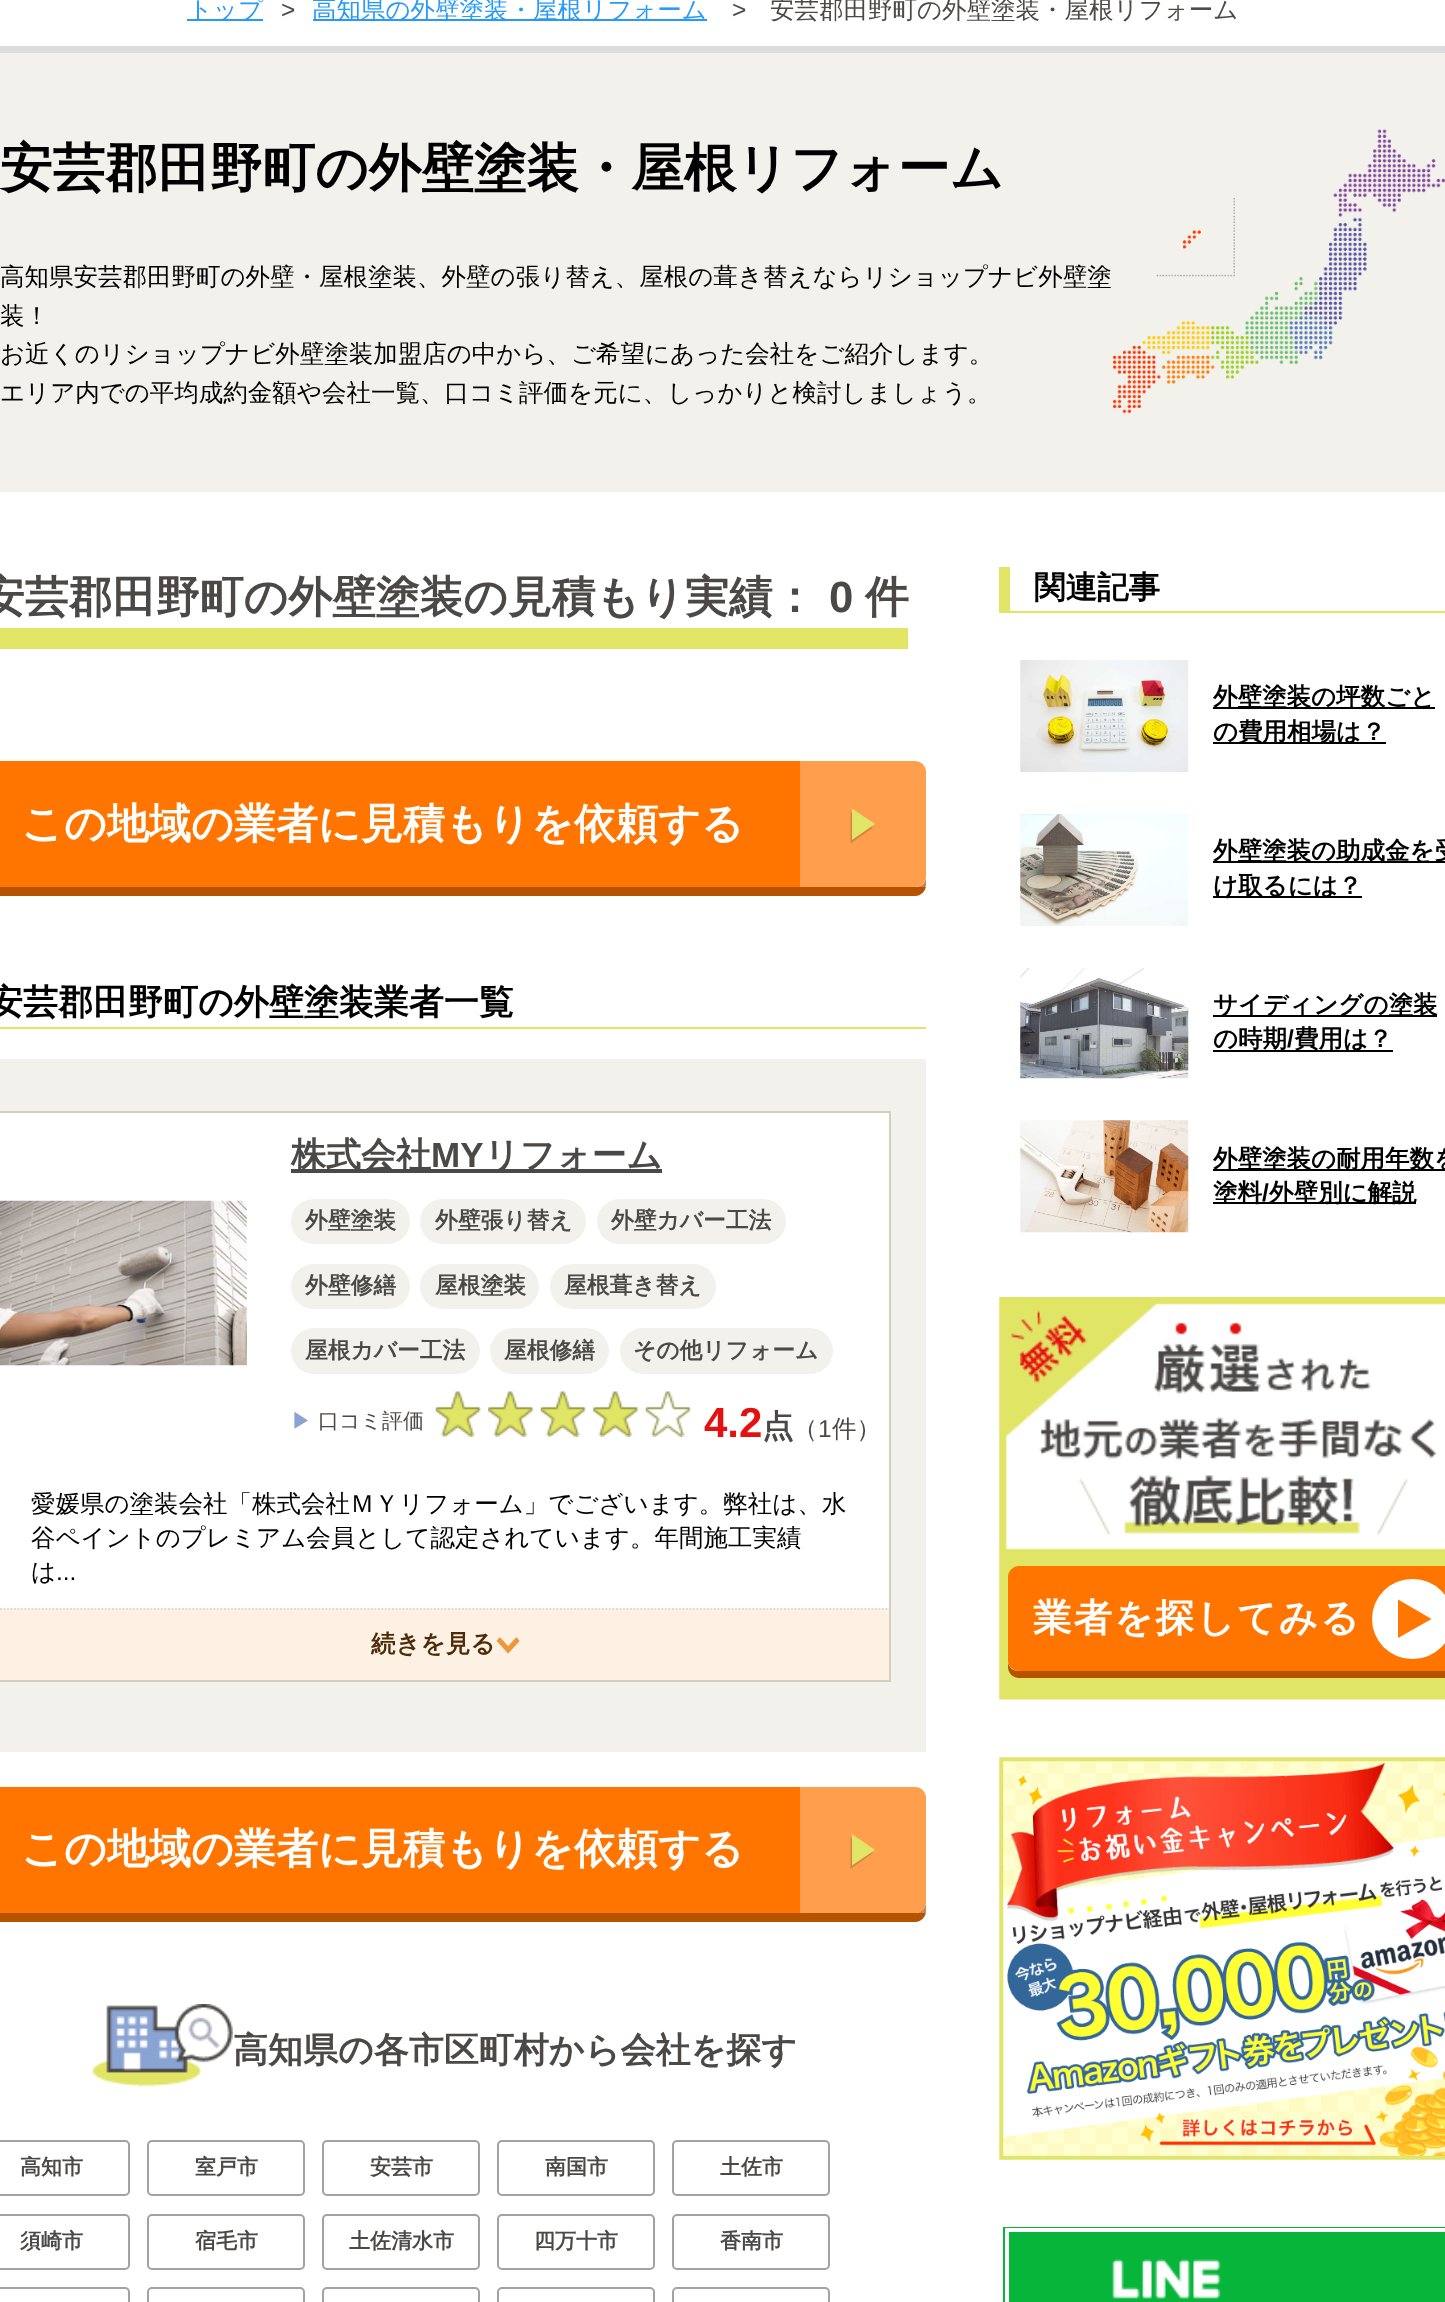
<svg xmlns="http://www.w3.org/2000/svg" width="1445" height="2302">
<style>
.a{font:500 24.5px WenQuanYi Zen Hei;fill:#2699fb}
.b{font:24.5px Liberation Sans;fill:#4b4846}
.c{font:500 24.5px WenQuanYi Zen Hei;fill:#4b4846}
.d{font:bold 52.5px WenQuanYi Zen Hei;fill:#000}
.e{font:500 24.5px WenQuanYi Zen Hei;fill:#000}
.f{font:bold 43.75px WenQuanYi Zen Hei;fill:#4b4846}
.g{font:bold 43.75px Liberation Sans;fill:#4b4846}
.h{font:bold 42px WenQuanYi Zen Hei;fill:#fff}
.i{font:bold 35px WenQuanYi Zen Hei;fill:#000}
.j{font:bold 35px WenQuanYi Zen Hei;fill:#4b4846}
.k{font:bold 35px Liberation Sans;fill:#4b4846}
.l{font:bold 22.75px WenQuanYi Zen Hei;fill:#4b4846}
.m{font:500 21px WenQuanYi Zen Hei;fill:#89a3d3}
.n{font:500 21px WenQuanYi Zen Hei;fill:#4b4846}
.o{font:bold 42px Liberation Sans;fill:#e51111}
.p{font:bold 31.5px WenQuanYi Zen Hei;fill:#4b4846}
.q{font:24.5px Liberation Sans;fill:#000}
.r{font:bold 24.5px WenQuanYi Zen Hei;fill:#4d2b09}
.s{font:bold 21px WenQuanYi Zen Hei;fill:#4b4846}
.t{font:bold 31.5px WenQuanYi Zen Hei;fill:#000}
.u{font:bold 24.5px WenQuanYi Zen Hei;fill:#000}
.v{font:bold 24.5px Liberation Sans;fill:#000}
.w{font:bold 38.5px WenQuanYi Zen Hei;letter-spacing:2px;fill:#fff}
</style>
<rect width="100%" height="100%" fill="#fff"/>
<path fill="#2699fb" d="M187 19h76v2H187z"/>
<path fill="#2699fb" d="M313 19h394v2H313z"/>
<path fill="#ddd" d="M0 46h1445v7H0z"/>
<path fill="#f2f1eb" d="M0 53h1445v439H0z"/>
<image href="1.png" x="1113" y="129" width="332" height="285"/>
<path fill="#e0e565" d="M0 628h908v21H0z"/>
<path fill="#b55300" d="M-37 779v106c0 6 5 11 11 11h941c6 0 11-5 11-11v-106v98c0 6-5 10-11 10h-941c-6 0-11-4-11-10z"/>
<rect fill="#ff7500" x="-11" y="761" width="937" height="126" rx="11"/>
<path fill="#ffffff4d" d="M800 761h126v126H800z"/>
<path fill="#d68540" d="M850.5 843.5v-31.5l22.5 16z"/>
<path fill="#e0e565" d="M852 840v-31.5l23 15.5z"/>
<path fill="#e0e565" d="M0 1027h926v2H0z"/>
<path fill="#f2f1eb" d="M0 1059h926v693H0z"/>
<path fill="#fff" d="M0 1113h889v495H0z"/>
<path fill="none" stroke="#d3d1bd" stroke-width="2" d="M-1 1112h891v569H-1z"/>
<image href="2.png" x="0" y="1200" width="247" height="166"/>
<path fill="#4b4846" d="M291 1169h371v4H291z"/>
<rect fill="#f2f1eb" x="291" y="1199" width="119" height="45" rx="22.5"/>
<rect fill="#f2f1eb" x="420" y="1199" width="166" height="45" rx="22.5"/>
<rect fill="#f2f1eb" x="597" y="1199" width="189" height="45" rx="22.5"/>
<rect fill="#f2f1eb" x="291" y="1264" width="119" height="45" rx="22.5"/>
<rect fill="#f2f1eb" x="420" y="1264" width="119" height="45" rx="22.5"/>
<rect fill="#f2f1eb" x="550" y="1264" width="166" height="45" rx="22.5"/>
<rect fill="#f2f1eb" x="291" y="1328" width="189" height="46" rx="23"/>
<rect fill="#f2f1eb" x="490" y="1328" width="119" height="46" rx="23"/>
<rect fill="#f2f1eb" x="620" y="1328" width="213" height="46" rx="23"/>
<image href="3.png" x="435" y="1391" width="47" height="46"/>
<image href="4.png" x="488" y="1391" width="46" height="46"/>
<image href="3.png" x="540" y="1391" width="47" height="46"/>
<image href="4.png" x="593" y="1391" width="46" height="46"/>
<image href="5.png" x="645" y="1391" width="47" height="46"/>
<path fill="#fcf1e3" d="M0 1608h889v72H0z"/>
<path fill="none" stroke="#dedede" stroke-width="1.8" stroke-dasharray="1.75 1.75" d="M0 1609h889"/>
<image href="6.png" x="496" y="1637" width="24" height="17"/>
<path fill="#b55300" d="M-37 1805v106c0 6 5 11 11 11h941c6 0 11-5 11-11v-106v97c0 6-5 11-11 11h-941c-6 0-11-5-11-11z"/>
<rect fill="#ff7500" x="-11" y="1787" width="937" height="126" rx="11"/>
<path fill="#ffffff4d" d="M800 1787h126v126H800z"/>
<path fill="#d68540" d="M850.5 1869v-31.5l22.5 15.5z"/>
<path fill="#e0e565" d="M852 1865.5v-31.5l23 16z"/>
<image href="7.png" x="92" y="2004" width="141" height="83"/>
<rect fill="none" stroke="#a2a2a2" stroke-width="2" x="-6" y="2141" width="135" height="54" rx="4"/>
<rect fill="none" stroke="#a2a2a2" stroke-width="2" x="148" y="2141" width="156" height="54" rx="4"/>
<rect fill="none" stroke="#a2a2a2" stroke-width="2" x="323" y="2141" width="156" height="54" rx="4"/>
<rect fill="none" stroke="#a2a2a2" stroke-width="2" x="498" y="2141" width="156" height="54" rx="4"/>
<rect fill="none" stroke="#a2a2a2" stroke-width="2" x="673" y="2141" width="156" height="54" rx="4"/>
<rect fill="none" stroke="#a2a2a2" stroke-width="2" x="-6" y="2215" width="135" height="54" rx="4"/>
<rect fill="none" stroke="#a2a2a2" stroke-width="2" x="148" y="2215" width="156" height="54" rx="4"/>
<rect fill="none" stroke="#a2a2a2" stroke-width="2" x="323" y="2215" width="156" height="54" rx="4"/>
<rect fill="none" stroke="#a2a2a2" stroke-width="2" x="498" y="2215" width="156" height="54" rx="4"/>
<rect fill="none" stroke="#a2a2a2" stroke-width="2" x="673" y="2215" width="156" height="54" rx="4"/>
<rect fill="none" stroke="#a2a2a2" stroke-width="2" x="-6" y="2288" width="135" height="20" rx="4"/>
<rect fill="none" stroke="#a2a2a2" stroke-width="2" x="148" y="2288" width="156" height="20" rx="4"/>
<rect fill="none" stroke="#a2a2a2" stroke-width="2" x="323" y="2288" width="156" height="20" rx="4"/>
<rect fill="none" stroke="#a2a2a2" stroke-width="2" x="498" y="2288" width="156" height="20" rx="4"/>
<rect fill="none" stroke="#a2a2a2" stroke-width="2" x="673" y="2288" width="156" height="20" rx="4"/>
<path fill="#e0e565" d="M1010 611h435v2H1010z"/>
<path fill="#e0e565" d="M999 567h11v46H999z"/>
<image href="8.png" x="1020" y="660" width="169" height="112"/>
<path fill="#000" d="M1213 707h222v2H1213z"/>
<path fill="#000" d="M1213 742h173v2H1213z"/>
<image href="9.png" x="1020" y="814" width="168" height="112"/>
<path fill="#000" d="M1213 861h232v2H1213z"/>
<path fill="#000" d="M1213 896h149v2H1213z"/>
<image href="10.png" x="1020" y="968" width="169" height="111"/>
<path fill="#000" d="M1213 1015h224v2H1213z"/>
<path fill="#000" d="M1213 1050h180v2H1213z"/>
<image href="11.png" x="1020" y="1120" width="169" height="113"/>
<path fill="#000" d="M1213 1169h232v2H1213z"/>
<path fill="#000" d="M1213 1202h203v2H1213z"/>
<image href="12.png" x="999" y="1297" width="446" height="403"/>
<path fill="#b55300" d="M1008 1661v6c0 6 5 11 11 11h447c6 0 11-5 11-11v-6c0 6-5 10-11 10h-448c-5 0-10-4-10-10z"/>
<rect fill="#ff7500" x="1008" y="1566" width="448" height="105" rx="11"/>
<rect fill="#fff" x="1372" y="1579" width="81" height="80" rx="40"/>
<path fill="#f70" d="M1398 1638v-38.5l33.5 19.5z"/>
<image href="13.png" x="999" y="1757" width="446" height="403"/>
<path fill="#07b53b" d="M1003 2227h442v75H1003z"/>
<path fill="none" stroke="#fff" stroke-width="4" d="M1007 2230h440v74H1007z"/>
<image href="14.png" x="1112" y="2259" width="109" height="40"/>
<text class="a" x="188" y="18">トップ</text>
<text class="b" x="281" y="18">&gt;</text>
<text class="a" x="312" y="18">高知県の外壁塗装・屋根リフォーム</text>
<text class="b" x="732" y="18">&gt;</text>
<text class="c" x="770" y="18">安芸郡田野町の外壁塗装・屋根リフォーム</text>
<text class="d" x="0" y="186">安芸郡田野町の外壁塗装・屋根リフォーム</text>
<text class="e" x="0" y="285">高知県安芸郡田野町の外壁・屋根塗装、外壁の張り替え、屋根の葺き替えならリショップナビ外壁塗</text>
<text class="e" x="0" y="324">装！</text>
<text class="e" x="0" y="362">お近くのリショップナビ外壁塗装加盟店の中から、ご希望にあった会社をご紹介します。</text>
<text class="e" x="0" y="401">エリア内での平均成約金額や会社一覧、口コミ評価を元に、しっかりと検討しましょう。</text>
<text class="f" x="-19" y="612">安芸郡田野町の外壁塗装の見積もり実績：</text>
<text class="g" x="829" y="612">0</text>
<text class="f" x="865" y="612">件</text>
<text class="h" x="21" y="838">この地域の業者に見積もりを依頼する</text>
<text class="i" x="-12" y="1014">安芸郡田野町の外壁塗装業者一覧</text>
<text class="j" x="291" y="1167">株式会社</text>
<text class="k" x="431" y="1167">MY</text>
<text class="j" x="484" y="1167">リフォーム</text>
<text class="l" x="305" y="1228">外壁塗装</text>
<text class="l" x="435" y="1228">外壁張り替え</text>
<text class="l" x="611" y="1228">外壁カバー工法</text>
<text class="l" x="305" y="1293">外壁修繕</text>
<text class="l" x="435" y="1293">屋根塗装</text>
<text class="l" x="564" y="1293">屋根葺き替え</text>
<text class="l" x="305" y="1358">屋根カバー工法</text>
<text class="l" x="504" y="1358">屋根修繕</text>
<text class="l" x="633" y="1358">その他リフォーム</text>
<text class="m" x="291" y="1428">▶</text>
<text class="n" x="318" y="1428">口コミ評価</text>
<text class="o" x="704" y="1437">4.2</text>
<text class="p" x="762" y="1437">点</text>
<text class="c" x="793" y="1437">（</text>
<text class="b" x="818" y="1437">1</text>
<text class="c" x="832" y="1437">件）</text>
<text class="e" x="31" y="1512">愛媛県の塗装会社「株式会社ＭＹリフォーム」でございます。弊社は、水</text>
<text class="e" x="31" y="1546">谷ペイントのプレミアム会員として認定されています。年間施工実績</text>
<text class="e" x="31" y="1580">は</text>
<text class="q" x="56" y="1580">...</text>
<text class="r" x="371" y="1652">続きを見る</text>
<text class="h" x="21" y="1863">この地域の業者に見積もりを依頼する</text>
<text class="j" x="233" y="2062">高知県の各市区町村から会社を探す</text>
<text class="s" x="20" y="2174">高知市</text>
<text class="s" x="195" y="2174">室戸市</text>
<text class="s" x="370" y="2174">安芸市</text>
<text class="s" x="545" y="2174">南国市</text>
<text class="s" x="720" y="2174">土佐市</text>
<text class="s" x="20" y="2248">須崎市</text>
<text class="s" x="195" y="2248">宿毛市</text>
<text class="s" x="349" y="2248">土佐清水市</text>
<text class="s" x="534" y="2248">四万十市</text>
<text class="s" x="720" y="2248">香南市</text>
<text class="t" x="1034" y="598">関連記事</text>
<text class="u" x="1213" y="705">外壁塗装の坪数ごと</text>
<text class="u" x="1213" y="740">の費用相場は？</text>
<text class="u" x="1213" y="859">外壁塗装の助成金を受</text>
<text class="u" x="1213" y="894">け取るには？</text>
<text class="u" x="1213" y="1013">サイディングの塗装</text>
<text class="u" x="1213" y="1047">の時期</text>
<text class="v" x="1287" y="1047">/</text>
<text class="u" x="1294" y="1047">費用は？</text>
<text class="u" x="1213" y="1167">外壁塗装の耐用年数を</text>
<text class="u" x="1213" y="1201">塗料</text>
<text class="v" x="1262" y="1201">/</text>
<text class="u" x="1269" y="1201">外壁別に解説</text>
<text class="w" x="1033" y="1631">業者を探してみる</text>
</svg>
